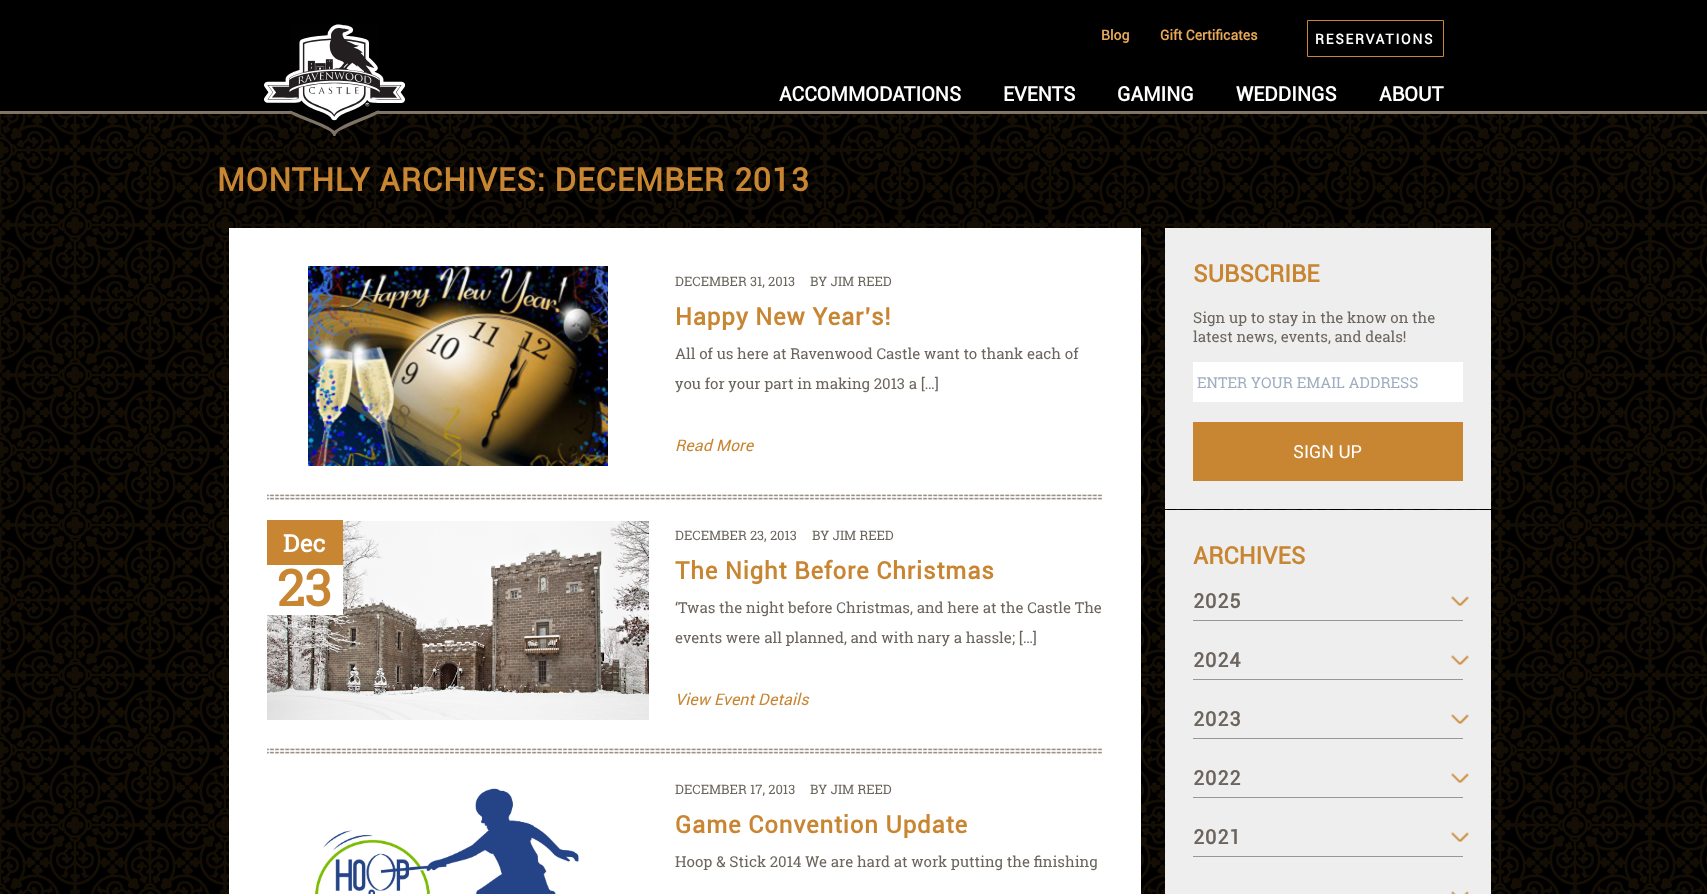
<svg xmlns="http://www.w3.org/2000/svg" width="1707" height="894">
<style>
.a{font:bold 14px Roboto;fill:#e8a959}
.b{font:bold 14px Roboto;letter-spacing:1.75px;fill:#fff}
.c{font:bold 20px Roboto;fill:#fff}
.d{font:bold 32px Roboto;letter-spacing:0.9px;fill:#c88532}
.e{font:13px Roboto Slab;fill:#6b655d}
.f{font:bold 24px Roboto;letter-spacing:0.85px;fill:#c88532}
.g{font:15px Roboto Slab;fill:#6b655d}
.h{font:italic 16px Roboto;letter-spacing:0.1px;fill:#c88532}
.i{font:bold 24px Roboto Slab;fill:#fff}
.j{font:bold 50px Roboto Slab;fill:#c88532}
.k{font:bold 24px Roboto;fill:#c88532}
.l{font:15px Roboto Slab;fill:#a0aec0}
.m{font:18px Roboto;fill:#fff}
.n{font:bold 20px Roboto;letter-spacing:0.85px;fill:#6b655d}
</style>
<rect width="100%" height="100%" fill="#000"/>
<image href="1.png" x="0" y="114" width="1707" height="780"/>
<path fill="#807465" d="M0 111h1707v3H0z"/>
<image href="2.png" x="264" y="24" width="141" height="112"/>
<path fill="none" stroke="#c88532" d="M1307.5 20.5h136v36H1307.5z"/>
<path fill="#fff" d="M229 228h912v666H229z"/>
<image href="3.png" x="308" y="266" width="300" height="200"/>
<image href="4.png" x="267" y="494" width="836" height="6"/>
<image href="5.png" x="267" y="521" width="382" height="199"/>
<path fill="#c88532" d="M267 520h76v45H267z"/>
<path fill="#fff" d="M267 565h76v50H267z"/>
<image href="4.png" x="267" y="748" width="836" height="6"/>
<image href="6.png" x="315" y="788" width="264" height="106"/>
<path fill="#eee" d="M1165 228h326v281H1165z"/>
<path fill="#fff" d="M1193 362h270v40H1193z"/>
<path fill="#c88532" d="M1193 422h270v59H1193z"/>
<path fill="#eee" d="M1165 510h326v384H1165z"/>
<path fill="#979797" d="M1193 620h270v1H1193z"/>
<image href="7.png" x="1451" y="596" width="18" height="10"/>
<path fill="#979797" d="M1193 679h270v1H1193z"/>
<image href="7.png" x="1451" y="655" width="18" height="10"/>
<path fill="#979797" d="M1193 738h270v1H1193z"/>
<image href="7.png" x="1451" y="714" width="18" height="10"/>
<path fill="#979797" d="M1193 797h270v1H1193z"/>
<image href="7.png" x="1451" y="773" width="18" height="10"/>
<path fill="#979797" d="M1193 856h270v1H1193z"/>
<image href="7.png" x="1451" y="832" width="18" height="10"/>
<image href="8.png" x="1451" y="891" width="18" height="3"/>
<text class="a" x="1101" y="40">Blog</text>
<text class="a" x="1160" y="40">Gift Certificates</text>
<text class="b" x="1315" y="44">RESERVATIONS</text>
<text class="c" x="779" y="101">ACCOMMODATIONS</text>
<text class="c" x="1003" y="101">EVENTS</text>
<text class="c" x="1117" y="101">GAMING</text>
<text class="c" x="1236" y="101">WEDDINGS</text>
<text class="c" x="1379" y="101">ABOUT</text>
<text class="d" x="217" y="191">MONTHLY ARCHIVES: DECEMBER 2013</text>
<text class="e" x="675" y="286">DECEMBER 31, 2013</text>
<text class="e" x="810" y="286">BY JIM REED</text>
<text class="f" x="675" y="325">Happy New Year’s!</text>
<text class="g" x="675" y="359">All of us here at Ravenwood Castle want to thank each of</text>
<text class="g" x="675" y="389">you for your part in making 2013 a […]</text>
<text class="h" x="675" y="451">Read More</text>
<text class="i" x="283" y="552">Dec</text>
<text class="j" x="277" y="606">23</text>
<text class="e" x="675" y="540">DECEMBER 23, 2013</text>
<text class="e" x="812" y="540">BY JIM REED</text>
<text class="f" x="675" y="579">The Night Before Christmas</text>
<text class="g" x="675" y="613">‘Twas the night before Christmas, and here at the Castle The</text>
<text class="g" x="675" y="643">events were all planned, and with nary a hassle; […]</text>
<text class="h" x="675" y="705">View Event Details</text>
<text class="e" x="675" y="794">DECEMBER 17, 2013</text>
<text class="e" x="810" y="794">BY JIM REED</text>
<text class="f" x="675" y="833">Game Convention Update</text>
<text class="g" x="675" y="867">Hoop &amp; Stick 2014 We are hard at work putting the finishing</text>
<text class="k" x="1193" y="282">SUBSCRIBE</text>
<text class="g" x="1193" y="323">Sign up to stay in the know on the</text>
<text class="g" x="1193" y="342">latest news, events, and deals!</text>
<text class="l" x="1197" y="388">ENTER YOUR EMAIL ADDRESS</text>
<text class="m" x="1293" y="458">SIGN UP</text>
<text class="k" x="1193" y="564">ARCHIVES</text>
<text class="n" x="1193" y="608">2025</text>
<text class="n" x="1193" y="667">2024</text>
<text class="n" x="1193" y="726">2023</text>
<text class="n" x="1193" y="785">2022</text>
<text class="n" x="1193" y="844">2021</text>
</svg>
